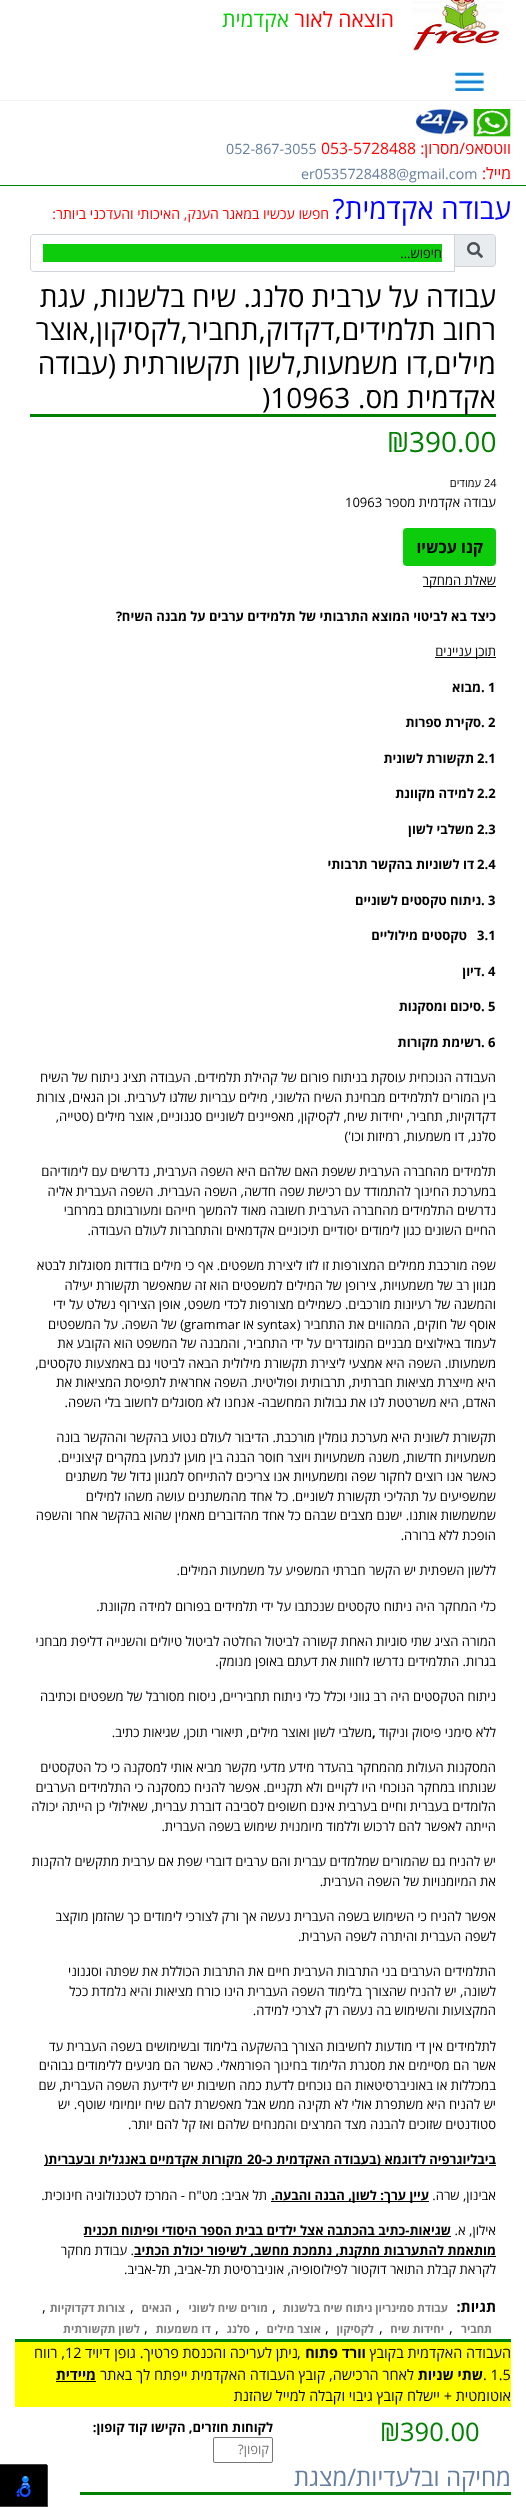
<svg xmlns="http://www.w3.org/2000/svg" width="526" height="2507">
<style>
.a{font:21px Open Sans;direction:rtl;fill:#f00}
.b{font:21px Open Sans;direction:rtl;fill:#0ccc0c}
.c{font:15.75px Open Sans;direction:rtl;fill:#f00}
.d{font:15.75px Open Sans;fill:#f00}
.e{font:14.25px Open Sans;fill:#667fa0}
.f{font:28px Open Sans;direction:rtl;fill:#00f}
.g{font:14px Open Sans;direction:rtl;fill:#f00}
.h{font:13px Open Sans;direction:rtl;fill:#000}
.i{font:28px Open Sans;direction:rtl;fill:#000}
.j{font:28px Open Sans;fill:#000}
.k{font:28px Open Sans;fill:#008000}
.l{font:11px Open Sans;fill:#000}
.m{font:11px Open Sans;direction:rtl;fill:#000}
.n{font:13px Open Sans;fill:#000}
.o{font:bold 16px Open Sans;direction:rtl;fill:#000}
.p{font:bold 13px Open Sans;direction:rtl;fill:#000}
.q{font:bold 13px Open Sans;fill:#000}
.r{font:bold 14.4px Open Sans;direction:rtl;fill:#000}
.s{font:bold 11.25px Open Sans;direction:rtl;fill:#808080}
.t{font:14.4px Open Sans;fill:#000}
.u{font:14.4px Open Sans;direction:rtl;fill:#000}
.v{font:25.5px Open Sans;fill:#008000}
.w{font:13px Open Sans;direction:rtl;fill:#757575}
.x{font:24px Open Sans;direction:rtl;fill:#667fa0}
</style>
<defs>
<clipPath id="clip1"><path d="M0 2465h48v42H0z"/></clipPath>
</defs>
<rect width="100%" height="100%" fill="#fff"/>
<path fill="#f1f2f7" d="M0 100h526v1H0z"/>
<image href="1.png" x="412" y="0" width="91" height="53"/>
<image href="2.png" x="454" y="71" width="31" height="20"/>
<path fill="#008000" d="M0 185h526v1H0z"/>
<image href="3.png" x="416" y="109" width="95" height="28"/>
<path fill="none" stroke="#ced4da" d="M34 234.5h420.5v37h-420.5c-2 0-3.5-1.5-3.5-3.5v-30c0-2 1.5-3.5 3.5-3.5z"/>
<path fill="#e9ecef" stroke="#ced4da" d="M454.5 234.5h37.5c2 0 3.5 1.5 3.5 3.5v25c0 2-1.5 3.5-3.5 3.5h-37.5z"/>
<image href="4.png" x="467" y="242" width="16" height="16"/>
<path fill="#0ccc0c" d="M43 244h399v18H43z"/>
<path fill="#008000" d="M30 414h466v3H30z"/>
<rect fill="#0ccc0c" x="403" y="528" width="93" height="38" rx="4"/>
<path fill="#000" d="M423 586h73v1H423z"/>
<path fill="#000" d="M435 657h61v1H435z"/>
<path fill="#000" d="M426 2165h70v1H426z"/>
<path fill="#000" d="M44 2165h382v1H44z"/>
<path fill="#000" d="M271 2201h158v1H271z"/>
<path fill="#000" d="M84 2236h367v1H84z"/>
<path fill="#000" d="M134 2256h362v1H134z"/>
<path fill="#008000" d="M15 2339h496v3H15z"/>
<path fill="#ff0" d="M15 2342h496v65H15z"/>
<path fill="#000" d="M56 2381h40v1H56z"/>
<rect fill="none" stroke="#767676" x="213.5" y="2437.5" width="59" height="25" rx="1.5"/>
<path fill="#008000" d="M80 2492h431v3H80z"/>
<path fill="#404040" d="M-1 2464v42h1v-41h47v-1z"/>
<path fill="#000" d="M0 2465h47v41H0z"/>
<g clip-path="url(#clip1)">
<path fill="#404040" fill-rule="evenodd" d="M-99 2366h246v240h-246zm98 98h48v42h-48z"/>
</g>
<image href="5.png" x="16" y="2476" width="15" height="21"/>
<text class="a" x="394" y="27">הוצאה לאור</text>
<text class="b" x="289" y="27">אקדמית</text>
<text class="c" x="511" y="154">ווטסאפ/מסרון:</text>
<text class="d" x="321" y="154">053-5728488</text>
<text class="e" x="226" y="154">052-867-3055</text>
<text class="c" x="511" y="179">מייל:</text>
<text class="e" x="301" y="179">er0535728488@gmail.com</text>
<text class="f" x="511" y="219">עבודה אקדמית?</text>
<text class="g" x="329" y="219">חפשו עכשיו במאגר הענק, האיכותי והעדכני ביותר:</text>
<text class="h" x="442" y="258">חיפוש...</text>
<text class="i" x="496" y="307">עבודה על ערבית סלנג. שיח בלשנות, עגת</text>
<text class="i" x="496" y="340">רחוב תלמידים,דקדוק,תחביר,לקסיקון,אוצר</text>
<text class="i" x="496" y="374">מילים,דו משמעות,לשון תקשורתית</text>
<text class="i" x="116" y="374">(עבודה</text>
<text class="i" x="496" y="408">אקדמית מס.</text>
<text class="j" x="262" y="408">)10963</text>
<text class="k" x="387" y="452">₪390.00</text>
<text class="l" x="484" y="487">24</text>
<text class="m" x="481" y="487">עמודים</text>
<text class="h" x="496" y="507">עבודה אקדמית מספר</text>
<text class="n" x="345" y="507">10963</text>
<text class="o" x="483" y="553">קנו עכשיו</text>
<text class="h" x="496" y="585">שאלת המחקר</text>
<text class="p" x="496" y="621">כיצד בא לביטוי המוצא התרבותי של תלמידים ערבים על מבנה השיח</text>
<text class="q" x="116" y="621">?</text>
<text class="h" x="496" y="656">תוכן עניינים</text>
<text class="q" x="481" y="692">. 1</text>
<text class="p" x="481" y="692">מבוא</text>
<text class="q" x="481" y="727">. 2</text>
<text class="p" x="481" y="727">סקירת ספרות</text>
<text class="q" x="477" y="763">2.1</text>
<text class="p" x="474" y="763">תקשורת לשונית</text>
<text class="q" x="477" y="798">2.2</text>
<text class="p" x="474" y="798">למידה מקוונת</text>
<text class="q" x="477" y="834">2.3</text>
<text class="p" x="474" y="834">משלבי לשון</text>
<text class="q" x="477" y="869">2.4</text>
<text class="p" x="474" y="869">דו לשוניות בהקשר תרבותי</text>
<text class="q" x="481" y="905">. 3</text>
<text class="p" x="481" y="905">ניתוח טקסטים לשוניים</text>
<text class="q" x="477" y="940">3.1</text>
<text class="p" x="467" y="940">טקסטים מילוליים</text>
<text class="q" x="481" y="976">. 4</text>
<text class="p" x="481" y="976">דיון</text>
<text class="q" x="481" y="1011">. 5</text>
<text class="p" x="481" y="1011">סיכום ומסקנות</text>
<text class="q" x="481" y="1047">. 6</text>
<text class="p" x="481" y="1047">רשימת מקורות</text>
<text class="h" x="496" y="1082">העבודה הנוכחית עוסקת בניתוח פורום של קהילת תלמידים. העבודה תציג ניתוח של השיח</text>
<text class="h" x="496" y="1102">בין המורים לתלמידים מבחינת השיח הלשוני, מילים עבריות שזלגו לערבית. וכן הגאים, צורות</text>
<text class="h" x="496" y="1121">דקדוקיות, תחביר, יחידות שיח, לקסיקון, מאפיינים לשוניים סגנוניים, אוצר מילים (סטייה,</text>
<text class="h" x="496" y="1141">סלנג, דו משמעות, רמיזות</text>
<text class="h" x="364" y="1141">וכו')</text>
<text class="h" x="496" y="1176">תלמידים מהחברה הערבית ששפת האם שלהם היא השפה הערבית, נדרשים עם לימודיהם</text>
<text class="h" x="496" y="1196">במערכת החינוך להתמודד עם רכישת שפה חדשה, השפה העברית. השפה העברית אליה</text>
<text class="h" x="496" y="1215">נדרשים התלמידים מהחברה הערבית חשובה מאוד להמשך חייהם ומעורבותם במרחבי</text>
<text class="h" x="496" y="1235">החיים השונים כגון לימודים יסודיים תיכוניים אקדמאים והתחברות לעולם העבודה.</text>
<text class="h" x="496" y="1270">שפה מורכבת ממילים המצורפות זו לזו ליצירת משפטים. אף כי מילים בודדות מסוגלות לבטא</text>
<text class="h" x="496" y="1290">מגוון רב של משמעויות, צירופן של המילים למשפטים הוא זה שמאפשר תקשורת יעילה</text>
<text class="h" x="496" y="1309">והמשגה של רעיונות מורכבים. כשמילים מצורפות לכדי משפט, אופן הצירוף נשלט על ידי</text>
<text class="h" x="496" y="1329">אוסף של חוקים, המהווים את התחביר (</text>
<text class="n" x="257" y="1329">syntax</text>
<text class="h" x="254" y="1329">או</text>
<text class="h" x="184" y="1329">) של השפה. על המשפטים</text>
<text class="n" x="184" y="1329">grammar</text>
<text class="h" x="496" y="1348">לעמוד באילוצים מבניים המוגדרים על ידי התחביר, והמבנה של המשפט הוא הקובע את</text>
<text class="h" x="496" y="1368">משמעותו. השפה היא אמצעי ליצירת תקשורת מילולית הבאה לביטוי גם באמצעות טקסטים,</text>
<text class="h" x="496" y="1387">היא מייצרת מציאות חברתית, תרבותית ופוליטית. השפה אחראית לתפיסת המציאות את</text>
<text class="h" x="496" y="1407">האדם, היא משרטטת לנו את גבולות המחשבה- אנחנו לא מסוגלים לחשוב בלי השפה.</text>
<text class="h" x="496" y="1442">תקשורת לשונית היא מערכת גומלין מורכבת. הדיבור לעולם נטוע בהקשר וההקשר בונה</text>
<text class="h" x="496" y="1462">משמעויות חדשות, משנה משמעויות ויוצר חוסר הבנה בין מוען לנמען במקרים קיצוניים.</text>
<text class="h" x="496" y="1481">כאשר אנו רוצים לחקור שפה ומשמעויות אנו צריכים להתייחס למגוון גדול של משתנים</text>
<text class="h" x="496" y="1501">שמשפיעים על תהליכי תקשורת לשוניים. כל אחד מהמשתנים עושה משהו למילים</text>
<text class="h" x="496" y="1520">שמשמשות אותנו. ישנם מצבים שבהם כל אחד מהדוברים מאמין שהוא בהקשר אחר והשפה</text>
<text class="h" x="496" y="1540">הופכת ללא ברורה.</text>
<text class="h" x="496" y="1575">ללשון השפתית יש הקשר חברתי המשפיע על משמעות המילים.</text>
<text class="h" x="496" y="1611">כלי המחקר היה ניתוח טקסטים שנכתבו על ידי תלמידים בפורום למידה מקוונת.</text>
<text class="h" x="496" y="1646">המורה הציג שתי סוגיות האחת קשורה לביטול החלטה לביטול טיולים והשנייה דליפת מבחני</text>
<text class="h" x="496" y="1666">בגרות. התלמידים נדרשו לחוות את דעתם באופן מנומק.</text>
<text class="h" x="496" y="1701">ניתוח הטקסטים היה רב גווני וכלל כלי ניתוח תחביריים,</text>
<text class="h" x="216" y="1701">ניסוח מסורבל של משפטים וכתיבה</text>
<text class="h" x="496" y="1737">ללא סימני פיסוק וניקוד</text>
<text class="q" x="372" y="1737">,</text>
<text class="h" x="372" y="1737">משלבי לשון ואוצר מילים, תיאורי תוכן, שגיאות כתיב.</text>
<text class="h" x="496" y="1772">המסקנות העולות מהמחקר בהעדר מידע מדעי מקשר מביא אותי למסקנה כי כל הטקסטים</text>
<text class="h" x="496" y="1792">שנותחו במחקר הנוכחי היו לקויים ולא תקניים. אפשר להניח כמסקנה כי התלמידים הערבים</text>
<text class="h" x="496" y="1811">הלומדים בעברית וחיים בערבית אינם חשופים לסביבה דוברת עברית, שאילולי כן הייתה יכולה</text>
<text class="h" x="496" y="1831">הייתה לאפשר להם לרכוש וללמוד מיומנוית שימוש בשפה העברית.</text>
<text class="h" x="496" y="1866">יש להניח גם שהמורים שמלמדים עברית והם ערבים דוברי שפת אם ערבית מתקשים להקנות</text>
<text class="h" x="496" y="1886">את המיומנויות של השפה הערבית.</text>
<text class="h" x="496" y="1921">אפשר להניח כי השימוש בשפה העברית נעשה אך ורק לצורכי לימודים כך שהזמן מוקצב</text>
<text class="h" x="496" y="1941">לשפה העברית והיתרה לשפה הערבית.</text>
<text class="h" x="496" y="1976">התלמידים הערבים בני התרבות הערבית חיים את התרבות הכוללת את שפתה וסגנוני</text>
<text class="h" x="496" y="1996">לשונה, יש להניח שהצורך בלימוד השפה העברית הינו כורח מציאות והיא נלמדת ככל</text>
<text class="h" x="496" y="2015">המקצועות והשימוש בה נעשה רק לצרכי למידה.</text>
<text class="h" x="496" y="2051">לתלמידים אין די מודעות לחשיבות הצורך בהשקעה בלימוד ובשימושים בשפה העברית עד</text>
<text class="h" x="496" y="2070">אשר הם מסיימים את מסגרת הלימוד בחינוך הפורמאלי. כאשר הם מגיעים ללימודים גבוהים</text>
<text class="h" x="496" y="2090">במכללות או באוניברסיטאות הם נוכחים לדעת כמה חשיבות יש לידיעת השפה העברית, שם</text>
<text class="h" x="496" y="2109">יש להניח היא משתפרת אולי לא תקינה ממש אבל מאפשרת להם שיח יומיומי שוטף. יש</text>
<text class="h" x="496" y="2129">סטודנטים שזוכים להבנה מצד המרצים והמנחים שלהם ואז קל להם יותר.</text>
<text class="p" x="496" y="2164">ביבליוגרפיה</text>
<text class="p" x="426" y="2164">לדוגמא (בעבודה האקדמית כ-</text>
<text class="q" x="247" y="2164">20</text>
<text class="p" x="243" y="2164">מקורות אקדמיים באנגלית ובעברית</text>
<text class="q" x="44" y="2164">)</text>
<text class="h" x="496" y="2200">אבינון, שרה.</text>
<text class="p" x="429" y="2200">עיין ערך: לשון, הבנה והבעה</text>
<text class="q" x="271" y="2200">.</text>
<text class="h" x="267" y="2200">תל אביב: מט"ח - המרכז לטכנולוגיה חינוכית.</text>
<text class="h" x="496" y="2235">אילון, א.</text>
<text class="p" x="451" y="2235">שגיאות-כתיב בהכתבה אצל ילדים בבית הספר היסודי ופיתוח תכנית</text>
<text class="p" x="496" y="2255">מותאמת</text>
<text class="p" x="444" y="2255">להתערבות מתקנת, נתמכת מחשב, לשיפור יכולת הכתיב</text>
<text class="h" x="134" y="2255">. עבודת מחקר</text>
<text class="h" x="496" y="2274">לקראת קבלת התואר דוקטור לפילוסופיה, אוניברסיטת תל-אביב, תל-אביב.</text>
<text class="r" x="496" y="2312">תגיות:</text>
<text class="s" x="448" y="2312">עבודת סמינריון ניתוח שיח בלשנות</text>
<text class="t" x="272" y="2312">,</text>
<text class="s" x="268" y="2312">מורים שיח לשוני</text>
<text class="t" x="176" y="2312">,</text>
<text class="s" x="172" y="2312">הגאים</text>
<text class="t" x="130" y="2312">,</text>
<text class="s" x="125" y="2312">צורות דקדוקיות</text>
<text class="t" x="42" y="2312">,</text>
<text class="s" x="492" y="2333">תחביר</text>
<text class="t" x="449" y="2333">,</text>
<text class="s" x="444" y="2333">יחידות שיח</text>
<text class="t" x="379" y="2333">,</text>
<text class="s" x="374" y="2333">לקסיקון</text>
<text class="t" x="325" y="2333">,</text>
<text class="s" x="321" y="2333">אוצר מילים</text>
<text class="t" x="255" y="2333">,</text>
<text class="s" x="250" y="2333">סלנג</text>
<text class="t" x="215" y="2333">,</text>
<text class="s" x="211" y="2333">דו משמעות</text>
<text class="t" x="144" y="2333">,</text>
<text class="s" x="140" y="2333">לשון תקשורתית</text>
<text class="u" x="511" y="2358">העבודה האקדמית בקובץ</text>
<text class="r" x="366" y="2358">וורד פתוח</text>
<text class="t" x="297" y="2358">,</text>
<text class="u" x="298" y="2358">ניתן לעריכה והכנסת פרטיך. גופן</text>
<text class="u" x="110" y="2358">דיויד</text>
<text class="t" x="65" y="2358">12</text>
<text class="u" x="65" y="2358">, רווח</text>
<text class="t" x="483" y="2380">. 1.5</text>
<text class="r" x="483" y="2380">שתי שניות</text>
<text class="u" x="414" y="2380">לאחר הרכישה, קובץ העבודה האקדמית ייפתח לך באתר</text>
<text class="r" x="96" y="2380">מיידית</text>
<text class="u" x="511" y="2401">אוטומטית + יישלח קובץ גיבוי וקבלה למייל שהזנת</text>
<text class="v" x="380" y="2441">₪390.00</text>
<text class="p" x="273" y="2432">לקוחות חוזרים, הקישו קוד קופון:</text>
<text class="w" x="269" y="2454">קופון?</text>
<text class="x" x="511" y="2486">מחיקה ובלעדיות/מצגת</text>
</svg>
